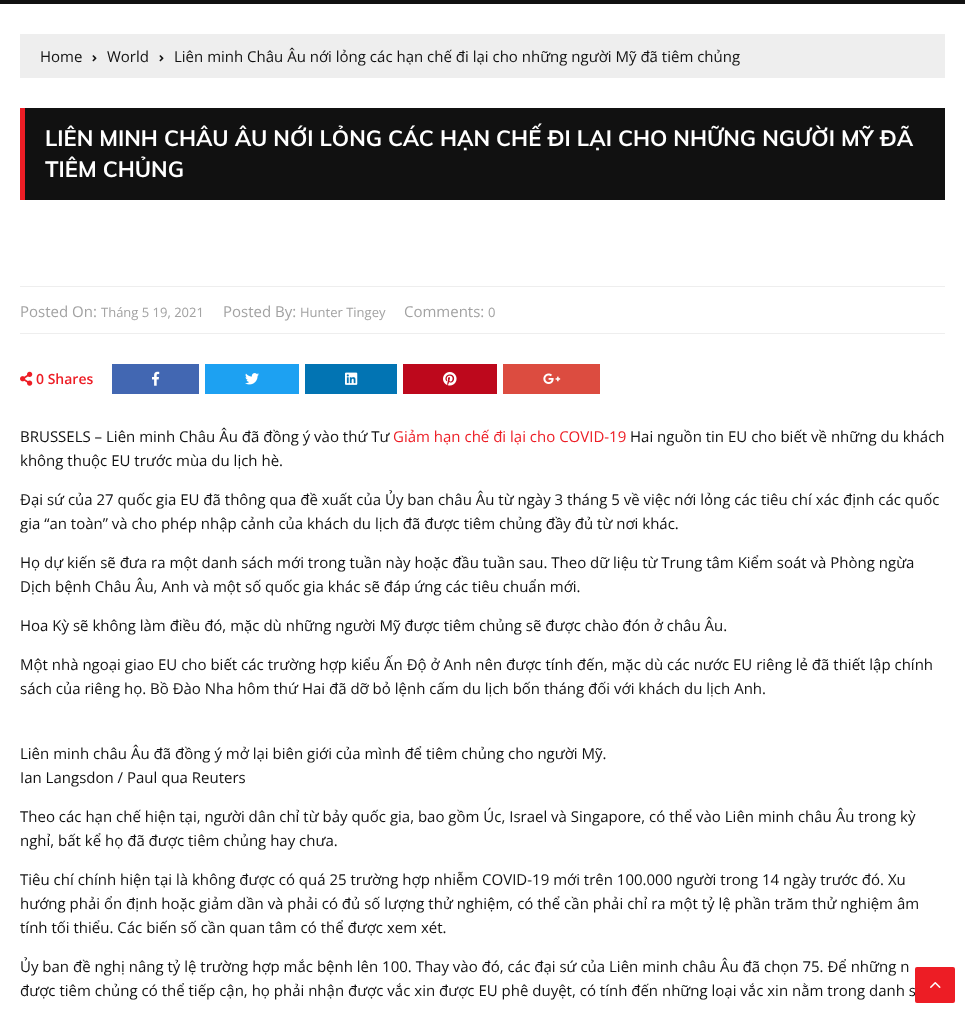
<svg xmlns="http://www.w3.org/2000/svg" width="965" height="1013">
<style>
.a{font:15px Open Sans;fill:#111}
.b{font:bold 22px Muli;fill:#fff}
.c{font:15px Open Sans;fill:#a2a2a2}
.d{font:13px Open Sans;fill:#a2a2a2}
.e{font:600 14px Open Sans;fill:#ed1d25}
.f{font:15px Open Sans;fill:#ed1d25}
</style>
<rect width="100%" height="100%" fill="#fff"/>
<path fill="#111" d="M0 0h965v4H0z"/>
<path fill="#eee" d="M20 34h925v44H20z"/>
<image href="1.png" x="92" y="55" width="5" height="7"/>
<image href="1.png" x="159" y="55" width="5" height="7"/>
<path fill="#111" d="M25 108h920v92H25z"/>
<path fill="#ed1d25" d="M20 108h5v92H20z"/>
<path fill="#eee" d="M20 286h925v1H20z"/>
<path fill="#eee" d="M20 333h925v1H20z"/>
<image href="2.png" x="20" y="371" width="13" height="15"/>
<path fill="#4267b2" d="M112 364h87v30H112z"/>
<image href="3.png" x="152" y="371" width="8" height="15"/>
<path fill="#1da1f2" d="M205 364h94v30H205z"/>
<image href="4.png" x="245" y="373" width="14" height="12"/>
<path fill="#0274b3" d="M305 364h92v30H305z"/>
<image href="5.png" x="345" y="372" width="13" height="13"/>
<path fill="#bd081c" d="M403 364h94v30H403z"/>
<image href="6.png" x="443" y="372" width="14" height="14"/>
<path fill="#dc4c40" d="M503 364h97v30H503z"/>
<image href="7.png" x="543" y="373" width="18" height="11"/>
<text class="a" x="40" y="62">Home</text>
<text class="a" x="107" y="62">World</text>
<text class="a" x="174" y="62">Liên minh Châu Âu nới lỏng các hạn chế đi lại cho những người Mỹ đã tiêm chủng</text>
<text class="b" x="45" y="146">LIÊN MINH CHÂU ÂU NỚI LỎNG CÁC HẠN CHẾ ĐI LẠI CHO NHỮNG NGƯỜI MỸ ĐÃ</text>
<text class="b" x="45" y="177">TIÊM CHỦNG</text>
<text class="c" x="20" y="317">Posted On:</text>
<text class="d" x="101" y="317">Tháng 5 19, 2021</text>
<text class="c" x="223" y="317">Posted By:</text>
<text class="d" x="300" y="317">Hunter Tingey</text>
<text class="c" x="404" y="317">Comments:</text>
<text class="d" x="488" y="317">0</text>
<text class="e" x="36" y="384">0 Shares</text>
<text class="a" x="20" y="442">BRUSSELS – Liên minh Châu Âu đã đồng ý vào thứ Tư</text>
<text class="f" x="393" y="442">Giảm hạn chế đi lại cho COVID-19</text>
<text class="a" x="630" y="442">Hai nguồn tin EU cho biết về những du khách</text>
<text class="a" x="20" y="466">không thuộc EU trước mùa du lịch hè.</text>
<text class="a" x="20" y="505">Đại sứ của 27 quốc gia EU đã thông qua đề xuất của Ủy ban châu Âu từ ngày 3 tháng 5 về việc nới lỏng các tiêu chí xác định các quốc</text>
<text class="a" x="20" y="529">gia “an toàn” và cho phép nhập cảnh của khách du lịch đã được tiêm chủng đầy đủ từ nơi khác.</text>
<text class="a" x="20" y="568">Họ dự kiến sẽ đưa ra một danh sách mới trong tuần này hoặc đầu tuần sau. Theo dữ liệu từ Trung tâm Kiểm soát và Phòng ngừa</text>
<text class="a" x="20" y="592">Dịch bệnh Châu Âu, Anh và một số quốc gia khác sẽ đáp ứng các tiêu chuẩn mới.</text>
<text class="a" x="20" y="631">Hoa Kỳ sẽ không làm điều đó, mặc dù những người Mỹ được tiêm chủng sẽ được chào đón ở châu Âu.</text>
<text class="a" x="20" y="670">Một nhà ngoại giao EU cho biết các trường hợp kiểu Ấn Độ ở Anh nên được tính đến, mặc dù các nước EU riêng lẻ đã thiết lập chính</text>
<text class="a" x="20" y="694">sách của riêng họ. Bồ Đào Nha hôm thứ Hai đã dỡ bỏ lệnh cấm du lịch bốn tháng đối với khách du lịch Anh.</text>
<text class="a" x="20" y="759">Liên minh châu Âu đã đồng ý mở lại biên giới của mình để tiêm chủng cho người Mỹ.</text>
<text class="a" x="20" y="783">Ian Langsdon / Paul qua Reuters</text>
<text class="a" x="20" y="822">Theo các hạn chế hiện tại, người dân chỉ từ bảy quốc gia, bao gồm Úc, Israel và Singapore, có thể vào Liên minh châu Âu trong kỳ</text>
<text class="a" x="20" y="846">nghỉ, bất kể họ đã được tiêm chủng hay chưa.</text>
<text class="a" x="20" y="885">Tiêu chí chính hiện tại là không được có quá 25 trường hợp nhiễm COVID-19 mới trên 100.000 người trong 14 ngày trước đó. Xu</text>
<text class="a" x="20" y="909">hướng phải ổn định hoặc giảm dần và phải có đủ số lượng thử nghiệm, có thể cần phải chỉ ra một tỷ lệ phần trăm thử nghiệm âm</text>
<text class="a" x="20" y="933">tính tối thiểu. Các biến số cần quan tâm có thể được xem xét.</text>
<text class="a" x="20" y="972">Ủy ban đề nghị nâng tỷ lệ trường hợp mắc bệnh lên 100. Thay vào đó, các đại sứ của Liên minh châu Âu đã chọn 75. Để những n</text>
<text class="a" x="20" y="996">được tiêm chủng có thể tiếp cận, họ phải nhận được vắc xin được EU phê duyệt, có tính đến những loại vắc xin nằm trong danh s</text>
<rect fill="#ed1d25" x="915" y="967" width="40" height="36" rx="2"/>
<image href="8.png" x="930" y="982" width="11" height="6"/>
</svg>
